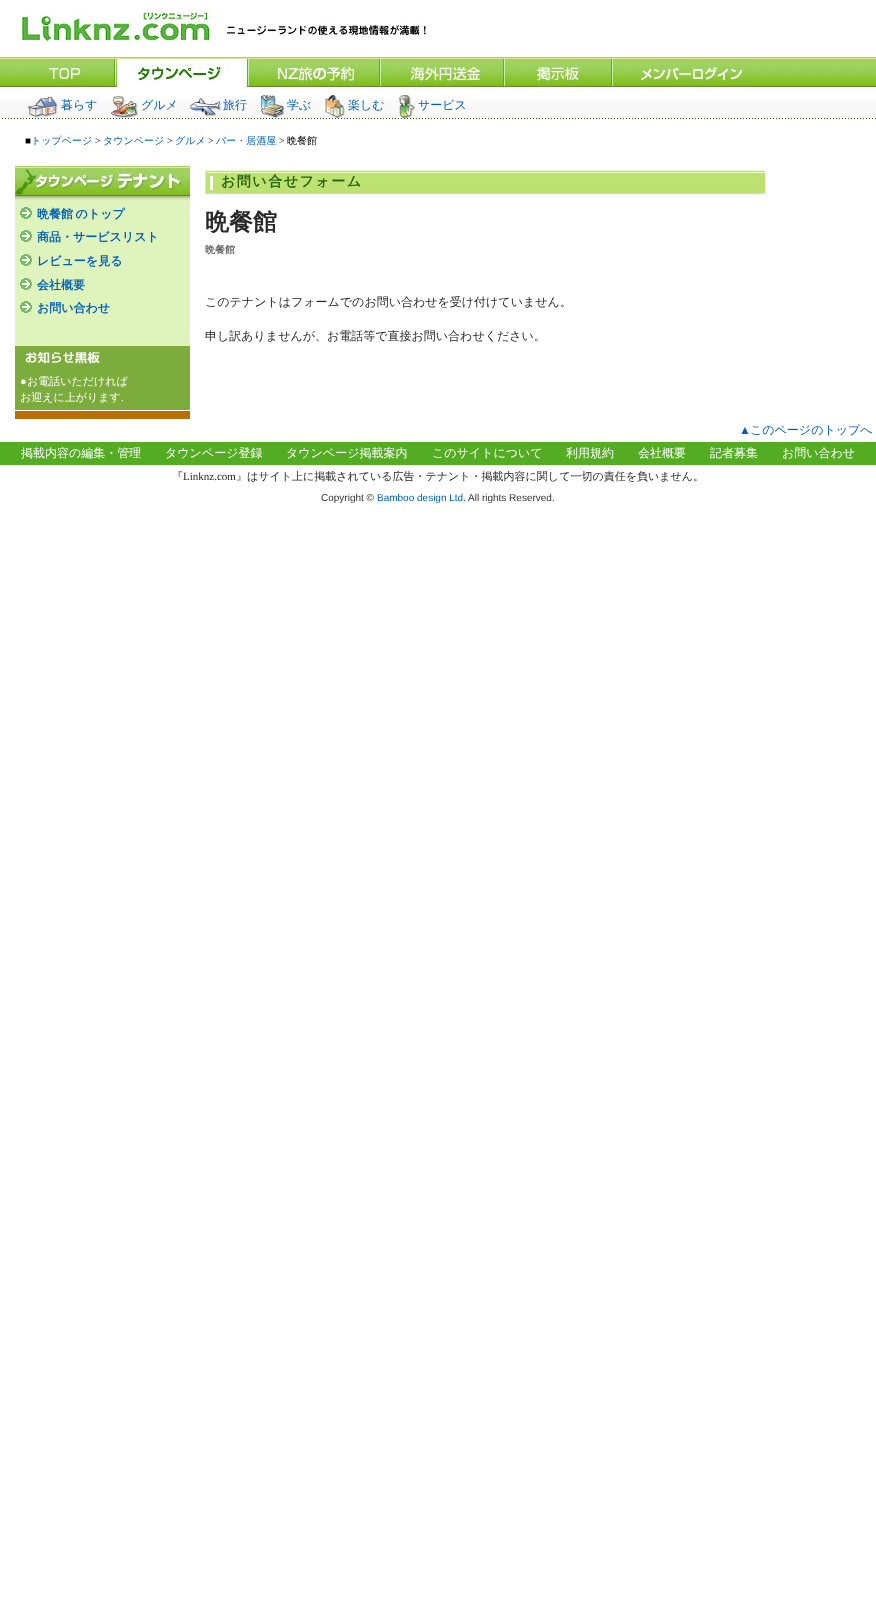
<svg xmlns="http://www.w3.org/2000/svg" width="876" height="1615">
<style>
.a{font:500 12px WenQuanYi Zen Hei;fill:#005fb9}
.b{font:10px Liberation Serif;fill:#000}
.c{font:500 10px WenQuanYi Zen Hei;fill:#005fb9}
.d{font:500 10px WenQuanYi Zen Hei;fill:#000}
.e{font:bold 12px WenQuanYi Zen Hei;fill:#005fb9}
.f{font:11px Liberation Serif;fill:#fff}
.g{font:500 11px WenQuanYi Zen Hei;fill:#fff}
.h{font:bold 14px WenQuanYi Zen Hei;letter-spacing:1.5px;fill:#276209}
.i{font:bold 24px WenQuanYi Zen Hei;fill:#292929}
.j{font:bold 10px WenQuanYi Zen Hei;fill:#666}
.k{font:500 12px WenQuanYi Zen Hei;fill:#292929}
.l{font:12px Liberation Serif;fill:#005fb9}
.m{font:500 12px WenQuanYi Zen Hei;fill:#fff}
.n{font:500 11px WenQuanYi Zen Hei;fill:#292929}
.o{font:11px Liberation Serif;fill:#292929}
.p{font:10px Liberation Sans;fill:#333}
.q{font:10px Liberation Sans;fill:#005fb9}
</style>
<rect width="100%" height="100%" fill="#fff"/>
<image href="1.png" x="20" y="12" width="407" height="30"/>
<image href="2.png" x="0" y="57" width="876" height="30"/>
<image href="3.png" x="44" y="57" width="72" height="30"/>
<image href="4.png" x="116" y="57" width="133" height="30"/>
<image href="5.png" x="273" y="57" width="108" height="30"/>
<image href="6.png" x="405" y="57" width="100" height="30"/>
<image href="7.png" x="537" y="57" width="76" height="30"/>
<image href="8.png" x="641" y="65" width="104" height="16"/>
<image href="9.png" x="0" y="100" width="876" height="19"/>
<image href="10.png" x="28" y="96" width="30" height="22"/>
<image href="11.png" x="111" y="96" width="27" height="22"/>
<image href="12.png" x="190" y="98" width="32" height="19"/>
<image href="13.png" x="261" y="95" width="24" height="23"/>
<image href="14.png" x="325" y="95" width="21" height="23"/>
<image href="15.png" x="398" y="95" width="18" height="23"/>
<image href="16.png" x="15" y="160" width="175" height="43"/>
<path fill="#dff3bc" d="M15 203h175v143H15z"/>
<image href="17.png" x="20" y="207" width="12" height="12"/>
<image href="17.png" x="20" y="230" width="12" height="12"/>
<image href="17.png" x="20" y="254" width="12" height="12"/>
<image href="17.png" x="20" y="278" width="12" height="12"/>
<image href="17.png" x="20" y="301" width="12" height="12"/>
<path fill="#7bac3c" d="M15 346h175v64H15z"/>
<image href="18.png" x="25" y="351" width="75" height="13"/>
<path fill="#ba6f05" d="M15 411h175v8H15z"/>
<image href="19.png" x="206" y="171" width="559" height="22"/>
<path fill="#e6fcca" d="M205 170h560v1H205z"/>
<path fill="#c0e6a8" d="M205 193h560v1H205z"/>
<path fill="#dfe6cd" d="M205 170h1v24H205z"/>
<path fill="#54ac23" d="M0 442h876v23H0z"/>
<text class="a" x="61" y="109">暮らす</text>
<text class="a" x="141" y="109">グルメ</text>
<text class="a" x="223" y="109">旅行</text>
<text class="a" x="287" y="109">学ぶ</text>
<text class="a" x="348" y="109">楽しむ</text>
<text class="a" x="418" y="109">サービス</text>
<text class="b" x="25" y="144">■</text>
<text class="c" x="31" y="144">トップページ</text>
<text class="b" x="95" y="144">&gt;</text>
<text class="c" x="103" y="144">タウンページ</text>
<text class="b" x="167" y="144">&gt;</text>
<text class="c" x="175" y="144">グルメ</text>
<text class="b" x="208" y="144">&gt;</text>
<text class="c" x="216" y="144">バー・居酒屋</text>
<text class="b" x="279" y="144">&gt;</text>
<text class="d" x="287" y="144">晩餐館</text>
<text class="e" x="37" y="218" word-spacing="-1">晩餐館 のトップ</text>
<text class="e" x="37" y="241">商品・サービスリスト</text>
<text class="e" x="37" y="265">レビューを見る</text>
<text class="e" x="37" y="289">会社概要</text>
<text class="e" x="37" y="312">お問い合わせ</text>
<text class="f" x="20" y="385">●</text>
<text class="g" x="27" y="385">お電話いただければ</text>
<text class="g" x="20" y="401">お迎えに上がります</text>
<text class="f" x="121" y="401">.</text>
<text class="h" x="221" y="186">お問い合せフォーム</text>
<text class="i" x="205" y="230">晩餐館</text>
<text class="j" x="205" y="253">晩餐館</text>
<text class="k" x="205" y="306">このテナントはフォームでのお問い合わせを受け付けていません。</text>
<text class="k" x="205" y="340">申し訳ありませんが、お電話等で直接お問い合わせください。</text>
<text class="l" x="739" y="434">▲</text>
<text class="a" x="750" y="434">このページのトップへ</text>
<text class="m" x="21" y="457">掲載内容の編集・管理</text>
<text class="m" x="165" y="457">タウンページ登録</text>
<text class="m" x="286" y="457">タウンページ掲載案内</text>
<text class="m" x="432" y="457">このサイトについて</text>
<text class="m" x="566" y="457">利用規約</text>
<text class="m" x="638" y="457">会社概要</text>
<text class="m" x="710" y="457">記者募集</text>
<text class="m" x="782" y="457">お問い合わせ</text>
<text class="n" x="172" y="480">『</text>
<text class="o" x="183" y="480">Linknz.com</text>
<text class="n" x="236" y="480">』はサイト上に掲載されている広告・テナント・掲載内容に関して一切の責任を負いません。</text>
<text class="p" x="321" y="501">Copyright ©</text>
<text class="q" x="377" y="501">Bamboo design Ltd.</text>
<text class="p" x="468" y="501">All rights Reserved.</text>
</svg>
